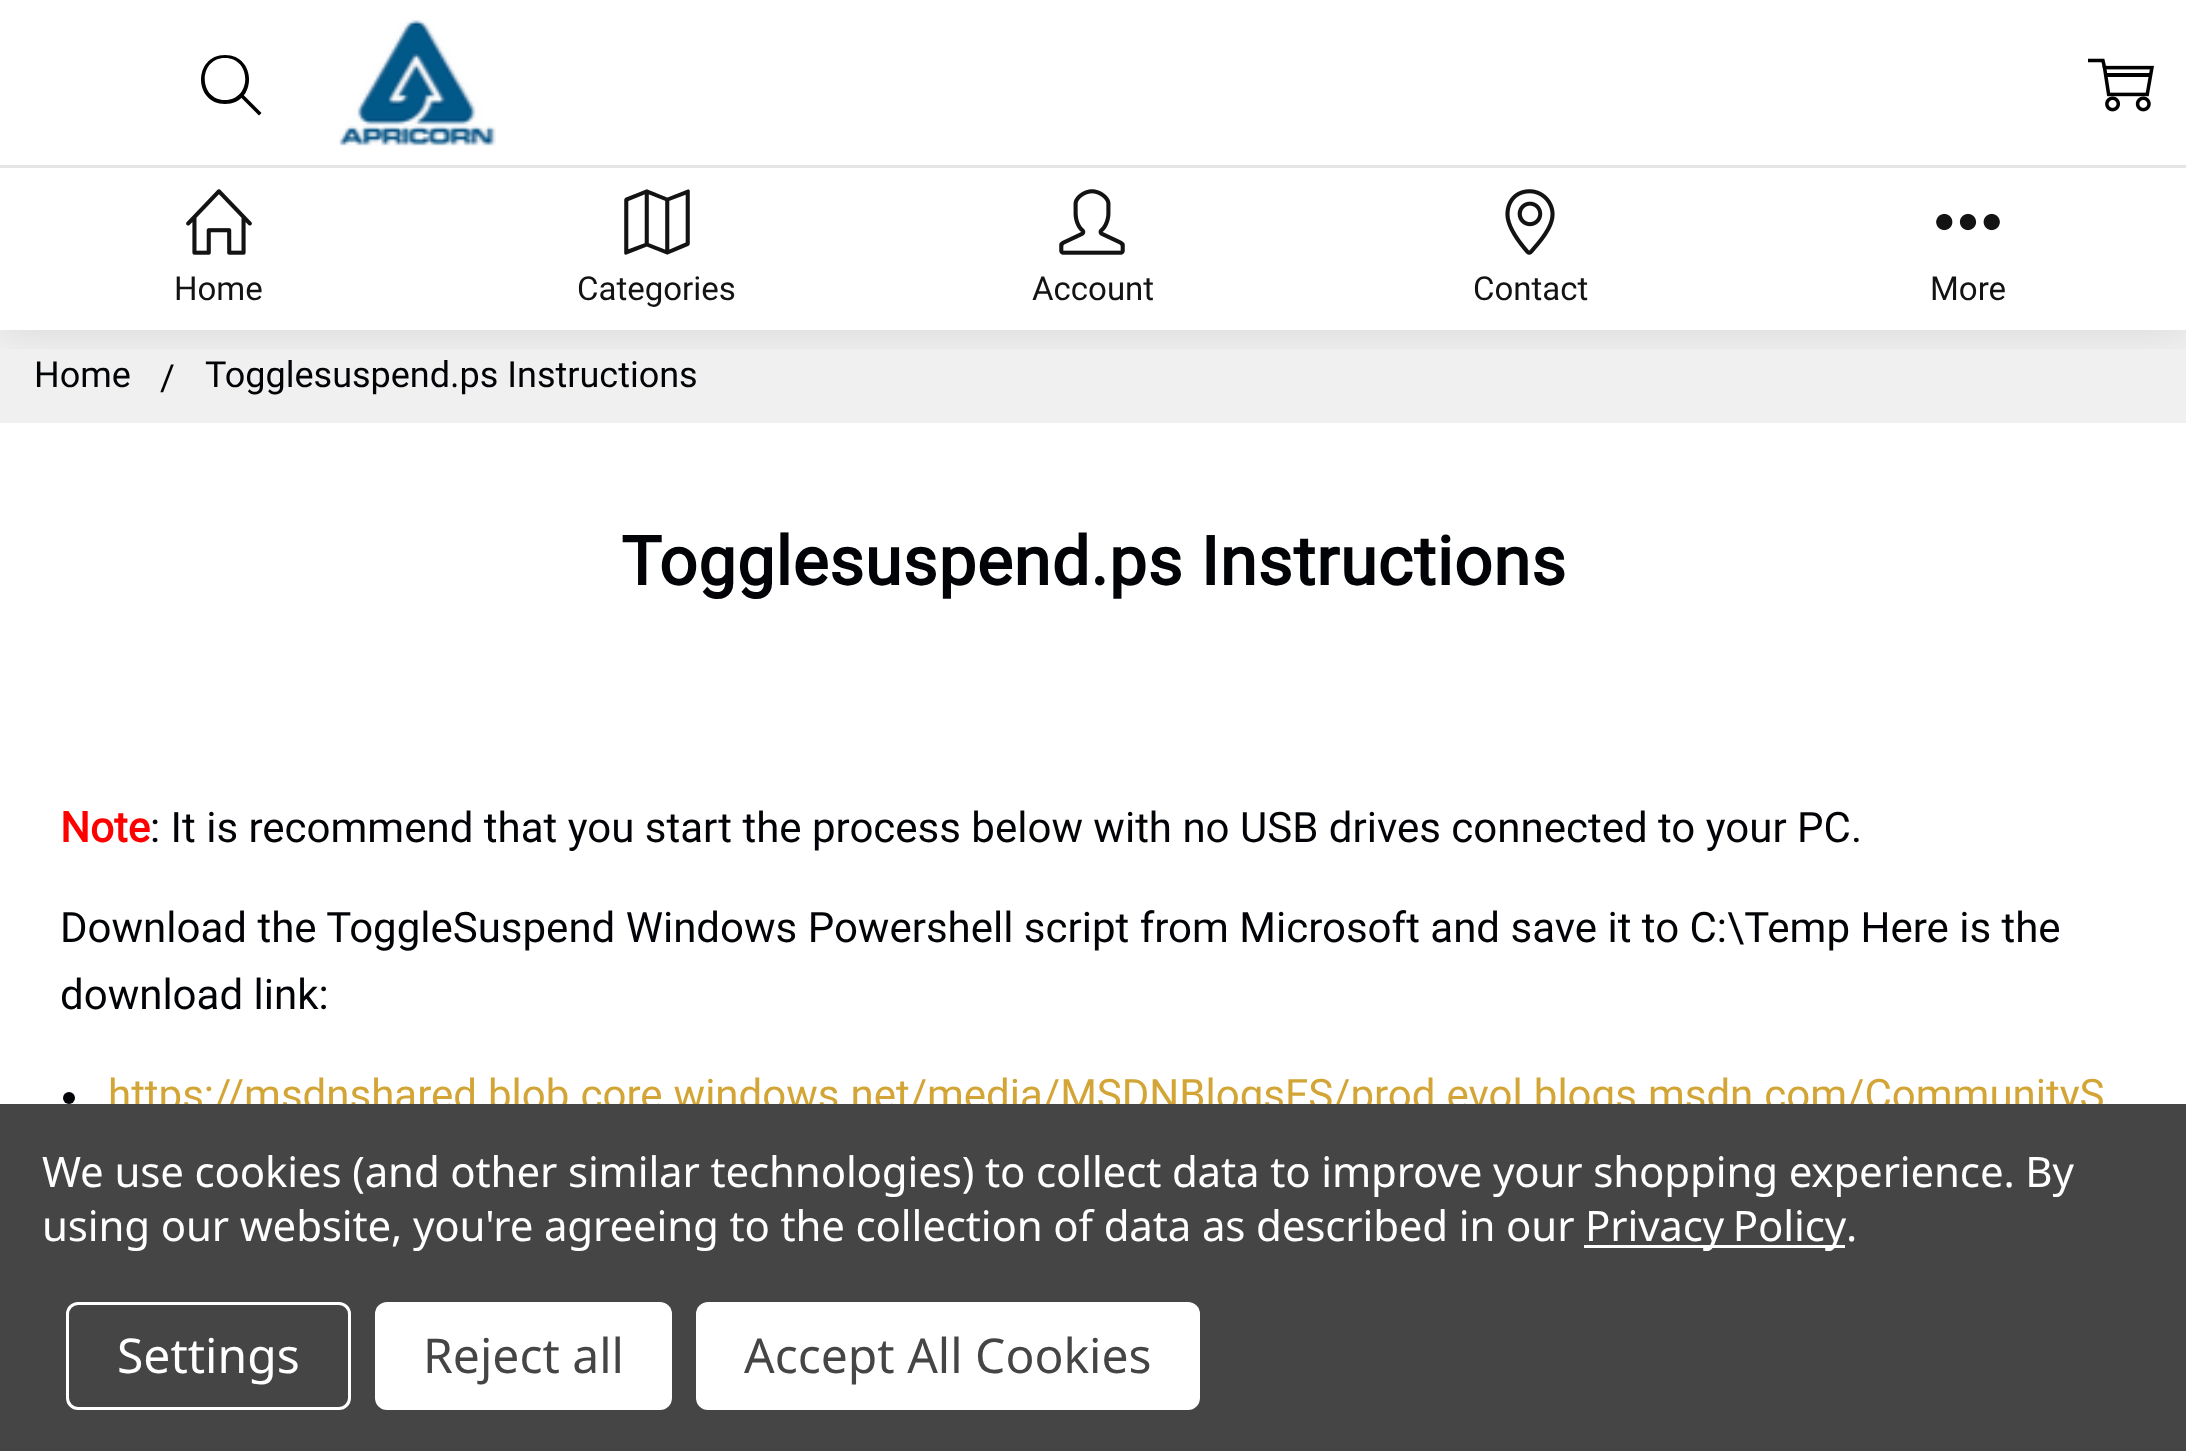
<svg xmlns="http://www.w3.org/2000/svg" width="2186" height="1451">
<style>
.a{font:33px Roboto;fill:#131313}
.b{font:36px Roboto;fill:#010306}
.c{font:bold 67.5px Roboto;letter-spacing:0.75px;fill:#010306}
.d{font:bold 42px Roboto;fill:#f00}
.e{font:42px Roboto;fill:#010306}
.f{font:42px Roboto;fill:#d3a537}
.g{font:42px Noto Sans;letter-spacing:-0.15px;fill:#fff}
.h{font:48px Noto Sans;fill:#fff}
.i{font:48px Noto Sans;fill:#454545}
</style>
<defs>
<clipPath id="clip1"><path d="M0 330h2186v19H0z"/></clipPath>
</defs>
<rect width="100%" height="100%" fill="#fff"/>
<path fill="#f0f0f0" d="M0 330h2186v93H0z"/>
<g clip-path="url(#clip1)">
<path fill="#0000001a" filter="blur(22.5px)" d="M0 165h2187v165H0z"/>
</g>
<path fill="#fff" d="M0 136h2186v29H0z"/>
<path fill="#e5e5e5" d="M0 165h2186v3H0z"/>
<image href="1.png" x="339" y="19" width="157" height="127"/>
<path fill="#000" d="M225 104c-32 0-32-49 0-49c32 0 32 49 0 49zm0-46c-27 0-27 42 0 42c27 0 27-42 0-42z"/>
<path fill="#000" d="M241.5 93l20 20l-2.5 2.5l-20-20z"/>
<image href="2.png" x="2088" y="58" width="66" height="54"/>
<image href="3.png" x="186" y="189" width="66" height="66"/>
<image href="4.png" x="624" y="189" width="66" height="66"/>
<image href="5.png" x="1059" y="189" width="66" height="66"/>
<image href="6.png" x="1505" y="189" width="50" height="66"/>
<image href="7.png" x="1936" y="213" width="64" height="18"/>
<circle fill="#010306" cx="69" cy="1098" r="6"/>
<text class="a" x="174" y="300">Home</text>
<text class="a" x="577" y="300">Categories</text>
<text class="a" x="1032" y="300">Account</text>
<text class="a" x="1473" y="300">Contact</text>
<text class="a" x="1930" y="300">More</text>
<text class="b" x="34" y="387">Home</text>
<text class="b" x="160" y="390">/</text>
<text class="b" x="205" y="387">Togglesuspend.ps Instructions</text>
<text class="c" x="621" y="585">Togglesuspend.ps Instructions</text>
<text class="d" x="60" y="842">Note</text>
<text class="e" x="150" y="842">: It is recommend that you start the process below with no USB drives connected to your PC.</text>
<text class="e" x="60" y="942">Download the ToggleSuspend Windows Powershell script from Microsoft and save it to C:\Temp Here is the</text>
<text class="e" x="60" y="1009">download link:</text>
<text class="f" x="108" y="1109">https://msdnshared.blob.core.windows.net/media/MSDNBlogsFS/prod.evol.blogs.msdn.com/CommunityS</text>
<path fill="#454545" d="M0 1104h2186v347H0z"/>
<text class="g" x="42" y="1187">We use cookies (and other similar technologies) to collect data to improve your shopping experience. By</text>
<text class="g" x="42" y="1241">using our website, you're agreeing to the collection of data as described in our</text>
<text class="g" x="1846" y="1241">.</text>
<path fill="#fff" d="M1584 1245h261v3H1584z"/>
<text class="g" x="1585" y="1241" word-spacing="-2">Privacy Policy</text>
<rect fill="none" stroke="#fff" stroke-width="3" x="67.5" y="1303.5" width="282" height="105" rx="10.5"/>
<text class="h" x="117" y="1373">Settings</text>
<rect fill="#fff" x="375" y="1302" width="297" height="108" rx="12"/>
<text class="i" x="423" y="1373">Reject all</text>
<rect fill="#fff" x="696" y="1302" width="504" height="108" rx="12"/>
<text class="i" x="744" y="1373">Accept All Cookies</text>
</svg>
